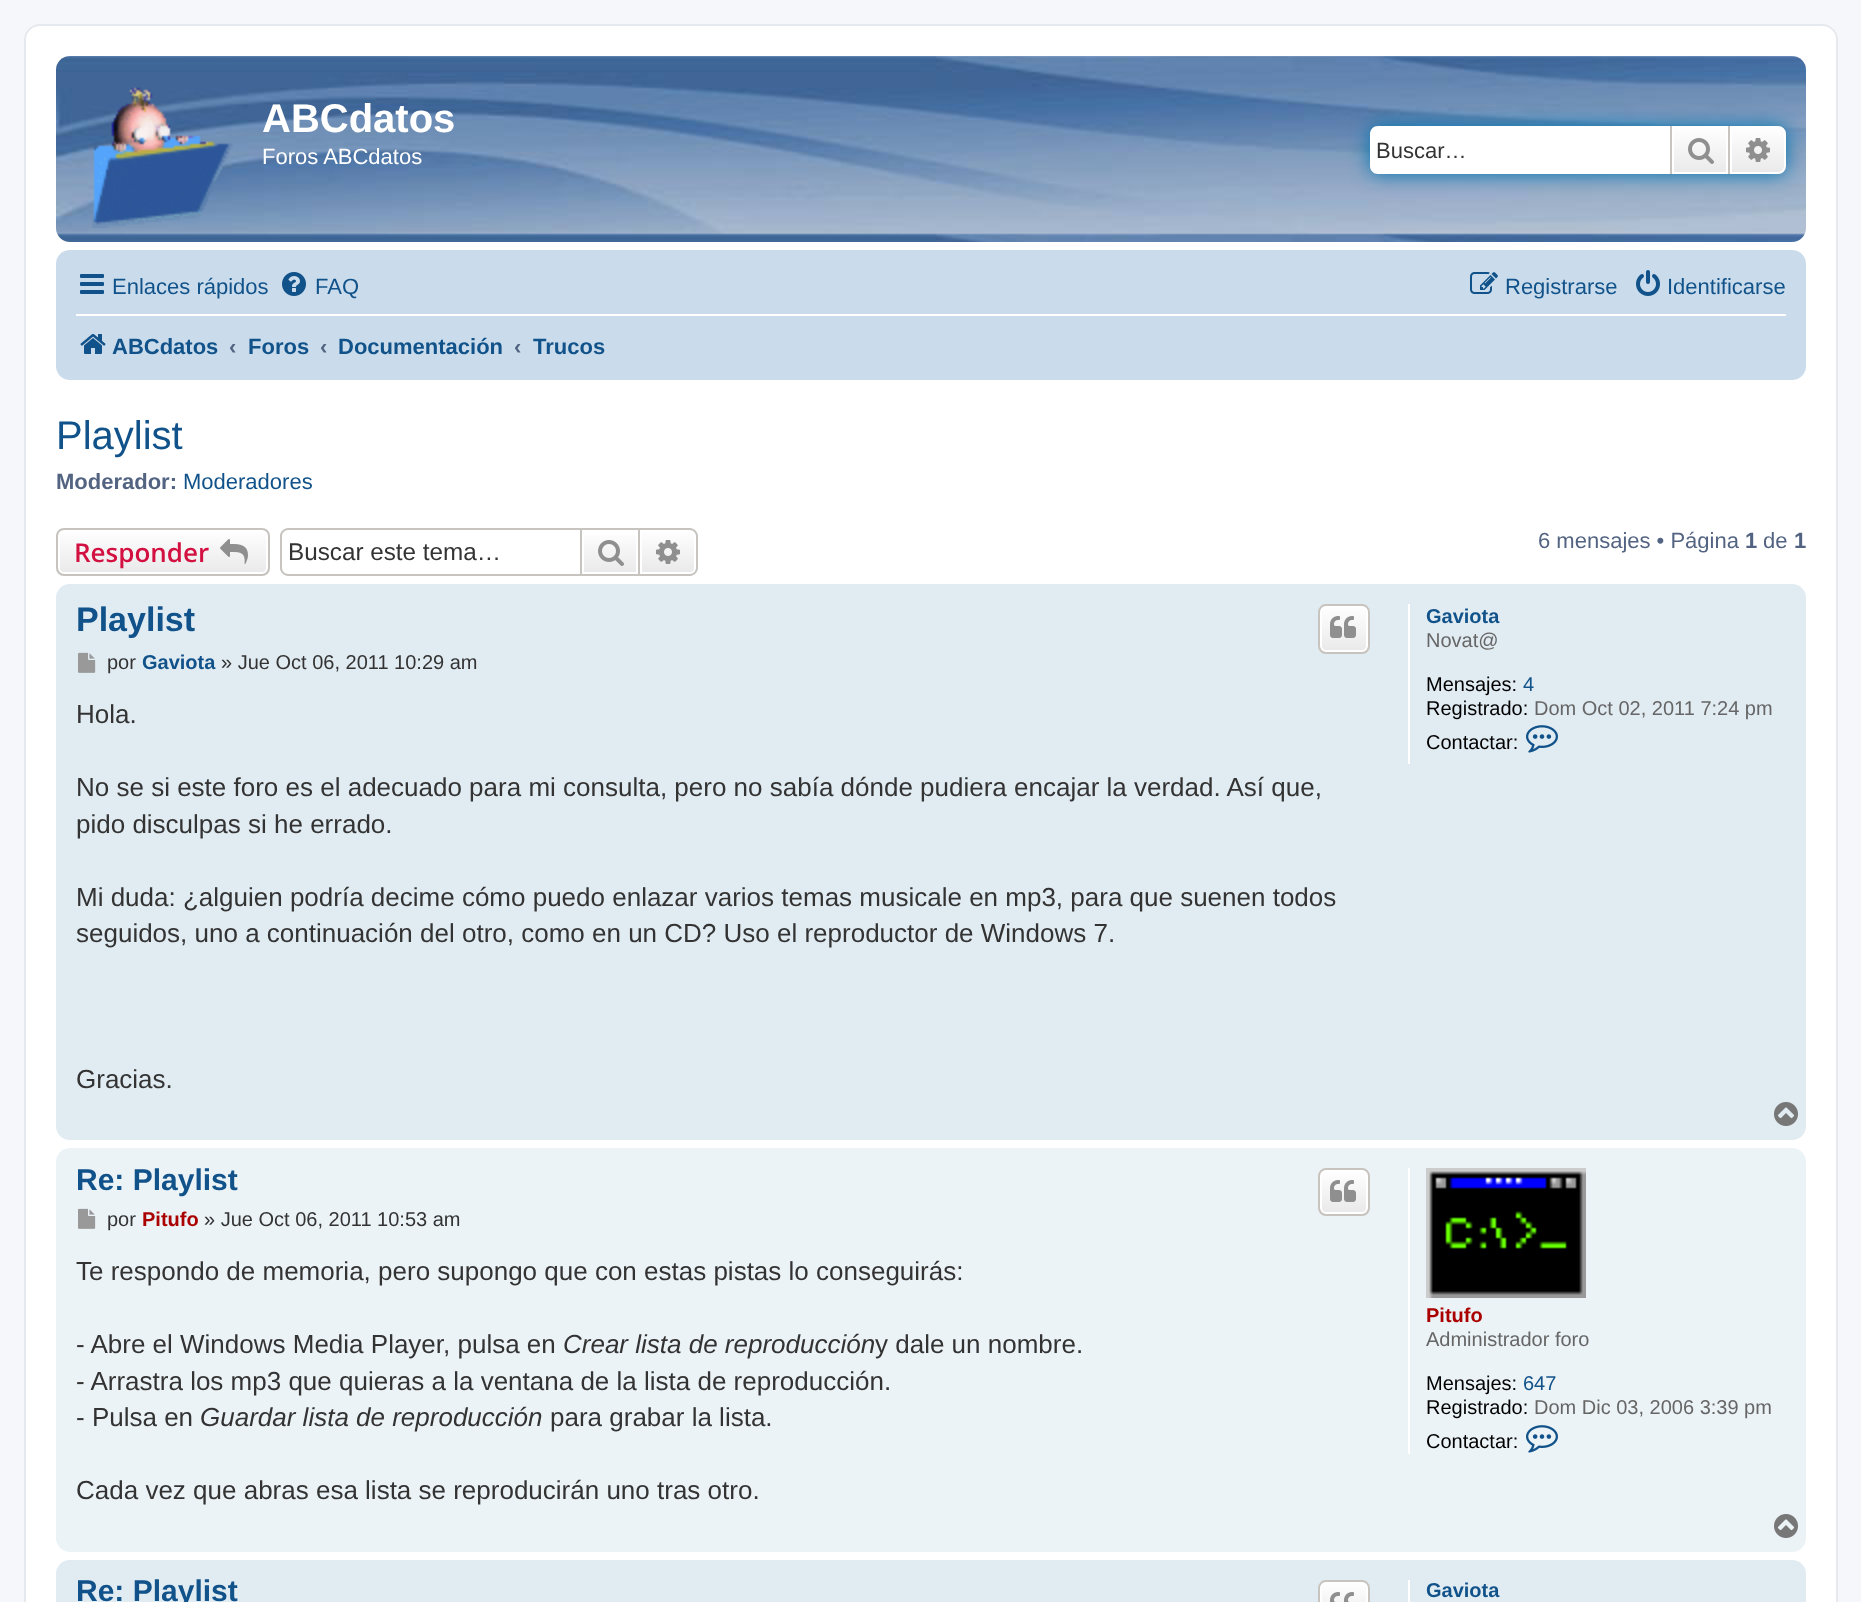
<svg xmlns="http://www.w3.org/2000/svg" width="1861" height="1602">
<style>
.a{font:bold 40px Liberation Sans;fill:#fff}
.b{font:22px Liberation Sans;fill:#fff}
.c{font:22px Liberation Sans;fill:#333}
.d{font:22px Liberation Sans;fill:#105289}
.e{font:bold 22px Liberation Sans;fill:#105289}
.f{font:bold 22px Liberation Sans;fill:#536482}
.g{font:40px Liberation Sans;fill:#105289}
.h{font:600 26px Open Sans;fill:#d31141}
.i{font:24.25px Liberation Sans;fill:#333}
.j{font:22px Liberation Sans;fill:#536482}
.k{font:bold 34px Liberation Sans;fill:#105289}
.l{font:20px Liberation Sans;fill:#333}
.m{font:bold 20px Liberation Sans;fill:#105289}
.n{font:26px Liberation Sans;fill:#333}
.o{font:20px Liberation Sans;fill:#666}
.p{font:20px Liberation Sans;fill:#000}
.q{font:20px Liberation Sans;fill:#105289}
.r{font:bold 30px Liberation Sans;fill:#105289}
.s{font:bold 20px Liberation Sans;fill:#a00}
.t{font:italic 26px Liberation Sans;fill:#333}
</style>
<defs>
<linearGradient id="g1" gradientUnits="userSpaceOnUse" x1="1700" y1="126" x2="1700" y2="174"><stop offset="0" stop-color="#fff"/><stop offset="1" stop-color="#e9e9e9"/></linearGradient>
<linearGradient id="g2" gradientUnits="userSpaceOnUse" x1="1758" y1="126" x2="1758" y2="174"><stop offset="0" stop-color="#fff"/><stop offset="1" stop-color="#e9e9e9"/></linearGradient>
<clipPath id="clip1"><rect x="56" y="528" width="214" height="48" rx="8"/></clipPath>
<linearGradient id="g3" gradientUnits="userSpaceOnUse" x1="163" y1="530" x2="163" y2="574"><stop offset="0" stop-color="#fff"/><stop offset="1" stop-color="#e9e9e9"/></linearGradient>
<linearGradient id="g4" gradientUnits="userSpaceOnUse" x1="610" y1="530" x2="610" y2="574"><stop offset="0" stop-color="#fff"/><stop offset="1" stop-color="#e9e9e9"/></linearGradient>
<linearGradient id="g5" gradientUnits="userSpaceOnUse" x1="668" y1="530" x2="668" y2="574"><stop offset="0" stop-color="#fff"/><stop offset="1" stop-color="#e9e9e9"/></linearGradient>
<clipPath id="clip2"><rect x="1318" y="604" width="52" height="50" rx="8"/></clipPath>
<linearGradient id="g6" gradientUnits="userSpaceOnUse" x1="1344" y1="606" x2="1344" y2="652"><stop offset="0" stop-color="#fff"/><stop offset="1" stop-color="#e9e9e9"/></linearGradient>
<clipPath id="clip3"><rect x="1318" y="1168" width="52" height="48" rx="8"/></clipPath>
<linearGradient id="g7" gradientUnits="userSpaceOnUse" x1="1344" y1="1170" x2="1344" y2="1214"><stop offset="0" stop-color="#fff"/><stop offset="1" stop-color="#e9e9e9"/></linearGradient>
<clipPath id="clip4"><rect x="1318" y="1580" width="52" height="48" rx="8"/></clipPath>
<linearGradient id="g8" gradientUnits="userSpaceOnUse" x1="1344" y1="1582" x2="1344" y2="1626"><stop offset="0" stop-color="#fff"/><stop offset="1" stop-color="#e9e9e9"/></linearGradient>
</defs>
<rect width="100%" height="100%" fill="#f5f7fa"/>
<rect fill="#fff" stroke="#e6e9ed" stroke-width="2" x="25" y="25" width="1812" height="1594" rx="15"/>
<image href="1.png" x="56" y="56" width="1750" height="186"/>
<image href="2.png" x="92" y="87" width="141" height="141"/>
<rect fill="#0075b0" filter="blur(10px)" x="1370" y="126" width="416" height="48" rx="8"/>
<path fill="#fff" d="M1378 126h292v48h-292c-4.5 0-8-3.5-8-8v-32c0-4.5 3.5-8 8-8z"/>
<path fill="url(#g1)" d="M1674 128h52v44H1674z"/>
<path fill="none" stroke="#fff" stroke-width="2" d="M1673 127h54v46H1673z"/>
<path fill="#c7c3bf" d="M1728 126h2v48H1728z"/>
<path fill="#c7c3bf" d="M1670 126h2v48H1670z"/>
<image href="3.png" x="1688" y="138" width="26" height="26"/>
<path fill="url(#g2)" stroke="#fff" stroke-width="2" d="M1731 127h47c4 0 7 3 7 7v32c0 4-3 7-7 7h-47z"/>
<image href="4.png" x="1746" y="138" width="24" height="24"/>
<rect fill="#cadceb" x="56" y="250" width="1750" height="130" rx="14"/>
<image href="5.png" x="80" y="274" width="24" height="20"/>
<image href="6.png" x="282" y="272" width="24" height="24"/>
<image href="7.png" x="1470" y="272" width="28" height="22"/>
<image href="8.png" x="1636" y="270" width="24" height="26"/>
<path fill="#fff" d="M76 314h1710v2H76z"/>
<image href="9.png" x="80" y="334" width="26" height="20"/>
<g clip-path="url(#clip1)">
<path fill="url(#g3)" d="M56 530h214v44H56z"/>
</g>
<rect fill="none" stroke="#fff" stroke-width="2" x="59" y="531" width="208" height="42" rx="5"/>
<rect fill="none" stroke="#c7c3bf" stroke-width="2" x="57" y="529" width="212" height="46" rx="7"/>
<image href="10.png" x="220" y="539" width="28" height="25"/>
<path fill="#c7c3bf" fill-rule="evenodd" d="M288 528h292v48h-292c-4 0-8-4-8-8v-32c0-4 4-8 8-8zm0 2h292v44h-292c-3 0-6-3-6-6v-32c0-3 3-6 6-6z"/>
<path fill="url(#g4)" d="M584 535h52v37H584z"/>
<path fill="none" stroke="#c7c3bf" stroke-width="2" d="M581 529h58v46H581z"/>
<image href="11.png" x="598" y="540" width="26" height="26"/>
<path fill="url(#g5)" stroke="#fff" stroke-width="2" d="M641 531h49c3 0 5 2 5 5v32c0 3-2 5-5 5h-49z"/>
<path fill="#c7c3bf" fill-rule="evenodd" d="M640 528h50c4 0 8 4 8 8v32c0 4-4 8-8 8h-50zm0 2h50c3 0 6 3 6 6v32c0 3-3 6-6 6h-50z"/>
<image href="12.png" x="656" y="540" width="24" height="24"/>
<rect fill="#e1ebf2" x="56" y="584" width="1750" height="556" rx="14"/>
<g clip-path="url(#clip2)">
<path fill="url(#g6)" d="M1318 606h52v46H1318z"/>
</g>
<rect fill="none" stroke="#fff" stroke-width="2" x="1321" y="607" width="46" height="44" rx="5"/>
<rect fill="none" stroke="#c7c3bf" stroke-width="2" x="1319" y="605" width="50" height="48" rx="7"/>
<image href="13.png" x="1330" y="616" width="26" height="22"/>
<image href="14.png" x="78" y="652" width="18" height="21"/>
<path fill="#fff" d="M1408 604h2v160H1408z"/>
<image href="15.png" x="1526" y="725" width="32" height="28"/>
<image href="16.png" x="1774" y="1102" width="24" height="24"/>
<rect fill="#ecf3f7" x="56" y="1148" width="1750" height="404" rx="14"/>
<g clip-path="url(#clip3)">
<path fill="url(#g7)" d="M1318 1170h52v44H1318z"/>
</g>
<rect fill="none" stroke="#fff" stroke-width="2" x="1321" y="1171" width="46" height="42" rx="5"/>
<rect fill="none" stroke="#c7c3bf" stroke-width="2" x="1319" y="1169" width="50" height="46" rx="7"/>
<image href="17.png" x="1330" y="1180" width="26" height="22"/>
<image href="18.png" x="78" y="1208" width="18" height="21"/>
<path fill="#fff" d="M1408 1168h2v286H1408z"/>
<image href="19.png" x="1426" y="1168" width="160" height="130"/>
<image href="20.png" x="1526" y="1425" width="32" height="28"/>
<image href="21.png" x="1774" y="1514" width="24" height="24"/>
<rect fill="#e1ebf2" x="56" y="1560" width="1750" height="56" rx="14"/>
<g clip-path="url(#clip4)">
<path fill="url(#g8)" d="M1318 1582h52v20H1318z"/>
</g>
<rect fill="none" stroke="#fff" stroke-width="2" x="1321" y="1583" width="46" height="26" rx="5"/>
<rect fill="none" stroke="#c7c3bf" stroke-width="2" x="1319" y="1581" width="50" height="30" rx="7"/>
<image href="22.png" x="1330" y="1592" width="24" height="10"/>
<path fill="#fff" d="M1408 1580h2v22H1408z"/>
<text class="a" x="262" y="132">ABCdatos</text>
<text class="b" x="262" y="164">Foros ABCdatos</text>
<text class="c" x="1376" y="158">Buscar…</text>
<text class="d" x="112" y="294">Enlaces rápidos</text>
<text class="d" x="315" y="294">FAQ</text>
<text class="d" x="1505" y="294">Registrarse</text>
<text class="d" x="1667" y="294">Identificarse</text>
<text class="e" x="112" y="354">ABCdatos</text>
<text class="f" x="229" y="354">‹</text>
<text class="e" x="248" y="354">Foros</text>
<text class="f" x="320" y="354">‹</text>
<text class="e" x="338" y="354">Documentación</text>
<text class="f" x="514" y="354">‹</text>
<text class="e" x="533" y="354">Trucos</text>
<text class="g" x="56" y="449">Playlist</text>
<text class="f" x="56" y="489">Moderador:</text>
<text class="d" x="183" y="489">Moderadores</text>
<text class="h" x="74" y="562">Responder</text>
<text class="i" x="288" y="560">Buscar este tema…</text>
<text class="j" x="1538" y="548">6 mensajes • Página</text>
<text class="f" x="1745" y="548">1</text>
<text class="j" x="1763" y="548">de</text>
<text class="f" x="1794" y="548">1</text>
<text class="k" x="76" y="631">Playlist</text>
<text class="l" x="107" y="669">por</text>
<text class="m" x="142" y="669">Gaviota</text>
<text class="l" x="221" y="669">» Jue Oct 06, 2011 10:29 am</text>
<text class="n" x="76" y="723">Hola.</text>
<text class="n" x="76" y="796">No se si este foro es el adecuado para mi consulta, pero no sabía dónde pudiera encajar la verdad. Así que,</text>
<text class="n" x="76" y="833">pido disculpas si he errado.</text>
<text class="n" x="76" y="906">Mi duda: ¿alguien podría decime cómo puedo enlazar varios temas musicale en mp3, para que suenen todos</text>
<text class="n" x="76" y="942">seguidos, uno a continuación del otro, como en un CD? Uso el reproductor de Windows 7.</text>
<text class="n" x="76" y="1088">Gracias.</text>
<text class="m" x="1426" y="623">Gaviota</text>
<text class="o" x="1426" y="647">Novat@</text>
<text class="p" x="1426" y="691">Mensajes:</text>
<text class="q" x="1523" y="691">4</text>
<text class="p" x="1426" y="715">Registrado:</text>
<text class="o" x="1534" y="715">Dom Oct 02, 2011 7:24 pm</text>
<text class="p" x="1426" y="749">Contactar:</text>
<text class="r" x="76" y="1190">Re: Playlist</text>
<text class="l" x="107" y="1226">por</text>
<text class="s" x="142" y="1226">Pitufo</text>
<text class="l" x="204" y="1226">» Jue Oct 06, 2011 10:53 am</text>
<text class="n" x="76" y="1280">Te respondo de memoria, pero supongo que con estas pistas lo conseguirás:</text>
<text class="n" x="76" y="1353">- Abre el Windows Media Player, pulsa en</text>
<text class="t" x="563" y="1353">Crear lista de reproducción</text>
<text class="n" x="875" y="1353">y dale un nombre.</text>
<text class="n" x="76" y="1390">- Arrastra los mp3 que quieras a la ventana de la lista de reproducción.</text>
<text class="n" x="76" y="1426">- Pulsa en</text>
<text class="t" x="200" y="1426">Guardar lista de reproducción</text>
<text class="n" x="550" y="1426">para grabar la lista.</text>
<text class="n" x="76" y="1499">Cada vez que abras esa lista se reproducirán uno tras otro.</text>
<text class="s" x="1426" y="1322">Pitufo</text>
<text class="o" x="1426" y="1346">Administrador foro</text>
<text class="p" x="1426" y="1390">Mensajes:</text>
<text class="q" x="1523" y="1390">647</text>
<text class="p" x="1426" y="1414">Registrado:</text>
<text class="o" x="1534" y="1414">Dom Dic 03, 2006 3:39 pm</text>
<text class="p" x="1426" y="1448">Contactar:</text>
<text class="r" x="76" y="1601">Re: Playlist</text>
<text class="m" x="1426" y="1597">Gaviota</text>
</svg>
